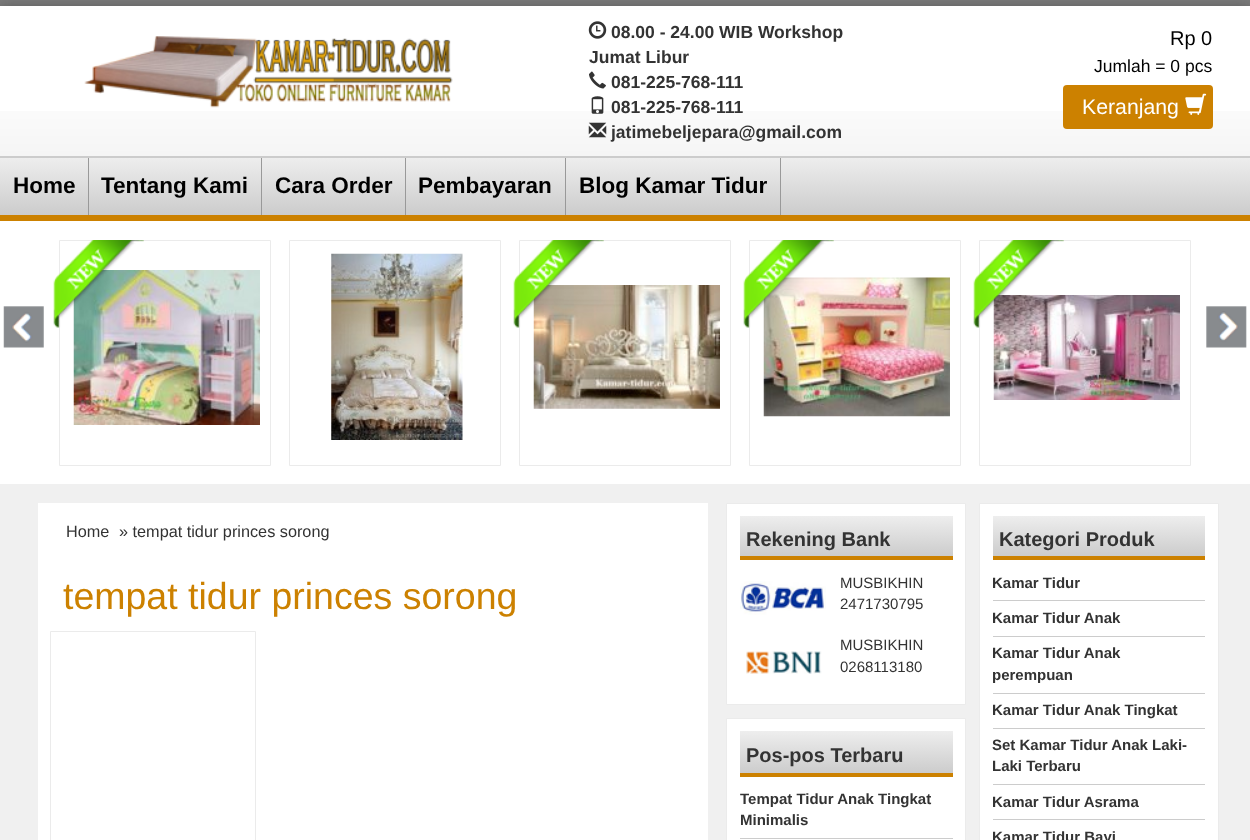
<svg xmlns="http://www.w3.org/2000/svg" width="1250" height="840">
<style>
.a{font:bold 17.5px Liberation Sans;fill:#333}
.b{font:20px Liberation Sans;fill:#000}
.c{font:17.5px Liberation Sans;fill:#000}
.d{font:21.25px Liberation Sans;fill:#fff}
.e{font:bold 22.5px Liberation Sans;fill:#000}
.f{font:16.25px Liberation Sans;fill:#333}
.g{font:37.5px Liberation Sans;fill:#cc8100}
.h{font:bold 20px Liberation Sans;fill:#333}
.i{font:15px Liberation Sans;fill:#333}
.j{font:bold 15px Liberation Sans;fill:#333}
</style>
<defs>
<linearGradient id="g1" gradientUnits="userSpaceOnUse" x1="625" y1="157" x2="625" y2="215"><stop offset="0" stop-color="#eee"/><stop offset="1" stop-color="#ccc"/></linearGradient>
<linearGradient id="g2" gradientUnits="userSpaceOnUse" x1="846" y1="516" x2="846" y2="556"><stop offset="0" stop-color="#eee"/><stop offset="1" stop-color="#ccc"/></linearGradient>
<linearGradient id="g3" gradientUnits="userSpaceOnUse" x1="846" y1="731" x2="846" y2="773"><stop offset="0" stop-color="#eee"/><stop offset="1" stop-color="#ccc"/></linearGradient>
<linearGradient id="g4" gradientUnits="userSpaceOnUse" x1="1099" y1="516" x2="1099" y2="556"><stop offset="0" stop-color="#eee"/><stop offset="1" stop-color="#ccc"/></linearGradient>
</defs>
<rect width="100%" height="100%" fill="#7a7a7a"/>
<path fill="#323232a1" filter="blur(7px)" d="M0 9h1250v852H0z"/>
<path fill="#fff" d="M0 6h1250v105H0z"/>
<image href="1.png" x="0" y="111" width="1250" height="45"/>
<image href="2.png" x="84" y="36" width="369" height="72"/>
<image href="3.png" x="588" y="21" width="19" height="18"/>
<image href="4.png" x="589" y="71" width="17" height="18"/>
<image href="5.png" x="591" y="96" width="13" height="18"/>
<image href="6.png" x="588" y="122" width="19" height="16"/>
<rect fill="#cc8100" x="1063" y="85" width="150" height="44" rx="4"/>
<image href="7.png" x="1185" y="93" width="22" height="22"/>
<path fill="#ccc" d="M0 156h1250v2H0z"/>
<path fill="url(#g1)" d="M0 158h1250v57H0z"/>
<path fill="#cc8100" d="M0 215h1250v6H0z"/>
<path fill="#999" d="M88 158h1v57H88z"/>
<path fill="#999" d="M261 158h1v57H261z"/>
<path fill="#999" d="M405 158h1v57H405z"/>
<path fill="#999" d="M565 158h1v57H565z"/>
<path fill="#999" d="M780 158h1v57H780z"/>
<path fill="#fff" d="M0 221h1250v263H0z"/>
<image href="8.png" x="3" y="306" width="41" height="42"/>
<path fill="none" stroke="#ebebeb" d="M59.5 240.5h211v225H59.5z"/>
<image href="10.png" x="73" y="270" width="187" height="155"/>
<image href="9.png" x="53" y="240" width="91" height="88"/>
<path fill="none" stroke="#ebebeb" d="M289.5 240.5h211v225H289.5z"/>
<image href="11.png" x="331" y="253" width="132" height="187"/>
<path fill="none" stroke="#ebebeb" d="M519.5 240.5h211v225H519.5z"/>
<image href="13.png" x="533" y="285" width="187" height="124"/>
<image href="12.png" x="513" y="240" width="91" height="88"/>
<path fill="none" stroke="#ebebeb" d="M749.5 240.5h211v225H749.5z"/>
<image href="15.png" x="763" y="277" width="187" height="140"/>
<image href="14.png" x="743" y="240" width="91" height="88"/>
<path fill="none" stroke="#ebebeb" d="M979.5 240.5h211v225H979.5z"/>
<image href="17.png" x="993" y="295" width="187" height="105"/>
<image href="16.png" x="973" y="240" width="91" height="88"/>
<image href="18.png" x="1206" y="306" width="41" height="42"/>
<path fill="#f0f0f0" d="M0 484h1250v356H0z"/>
<path fill="#fff" d="M38 503h670v337H38z"/>
<path fill="none" stroke="#ebebeb" d="M50.5 631.5h205v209H50.5z"/>
<path fill="#fff" stroke="#ebebeb" d="M726.5 503.5h239v201H726.5z"/>
<path fill="url(#g2)" d="M740 516h213v40H740z"/>
<path fill="#cc8100" d="M740 556h213v4H740z"/>
<image href="19.png" x="740" y="581" width="86" height="34"/>
<image href="20.png" x="746" y="651" width="76" height="23"/>
<path fill="#fff" stroke="#ebebeb" d="M726.5 718.5h239v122H726.5z"/>
<path fill="url(#g3)" d="M740 731h213v42H740z"/>
<path fill="#cc8100" d="M740 773h213v4H740z"/>
<path fill="#ccc" d="M740 838h213v1H740z"/>
<path fill="#fff" stroke="#ebebeb" d="M979.5 503.5h239v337H979.5z"/>
<path fill="url(#g4)" d="M993 516h212v40H993z"/>
<path fill="#cc8100" d="M993 556h212v4H993z"/>
<path fill="#ccc" d="M993 600h212v1H993z"/>
<path fill="#ccc" d="M993 636h212v1H993z"/>
<path fill="#ccc" d="M993 693h212v1H993z"/>
<path fill="#ccc" d="M993 728h212v1H993z"/>
<path fill="#ccc" d="M993 784h212v1H993z"/>
<path fill="#ccc" d="M993 819h212v1H993z"/>
<text class="a" x="611" y="38">08.00 - 24.00 WIB Workshop</text>
<text class="a" x="589" y="63">Jumat Libur</text>
<text class="a" x="611" y="88">081-225-768-111</text>
<text class="a" x="611" y="113">081-225-768-111</text>
<text class="a" x="611" y="138">jatimebeljepara@gmail.com</text>
<text class="b" x="1170" y="45">Rp 0</text>
<text class="c" x="1094" y="72">Jumlah = 0 pcs</text>
<text class="d" x="1082" y="114">Keranjang</text>
<text class="e" x="13" y="193">Home</text>
<text class="e" x="101" y="193">Tentang Kami</text>
<text class="e" x="275" y="193">Cara Order</text>
<text class="e" x="418" y="193">Pembayaran</text>
<text class="e" x="579" y="193">Blog Kamar Tidur</text>
<text class="f" x="66" y="537">Home</text>
<text class="f" x="119" y="537">» tempat tidur princes sorong</text>
<text class="g" x="63" y="609">tempat tidur princes sorong</text>
<text class="h" x="746" y="546">Rekening Bank</text>
<text class="i" x="840" y="588">MUSBIKHIN</text>
<text class="i" x="840" y="609">2471730795</text>
<text class="i" x="840" y="650">MUSBIKHIN</text>
<text class="i" x="840" y="672">0268113180</text>
<text class="h" x="746" y="762">Pos-pos Terbaru</text>
<text class="j" x="740" y="804">Tempat Tidur Anak Tingkat</text>
<text class="j" x="740" y="825">Minimalis</text>
<text class="h" x="999" y="546">Kategori Produk</text>
<text class="j" x="992" y="588">Kamar Tidur</text>
<text class="j" x="992" y="623">Kamar Tidur Anak</text>
<text class="j" x="992" y="658">Kamar Tidur Anak</text>
<text class="j" x="992" y="680">perempuan</text>
<text class="j" x="992" y="715">Kamar Tidur Anak Tingkat</text>
<text class="j" x="992" y="750">Set Kamar Tidur Anak Laki-</text>
<text class="j" x="992" y="771">Laki Terbaru</text>
<text class="j" x="992" y="807">Kamar Tidur Asrama</text>
<text class="j" x="992" y="842">Kamar Tidur Bayi</text>
</svg>
